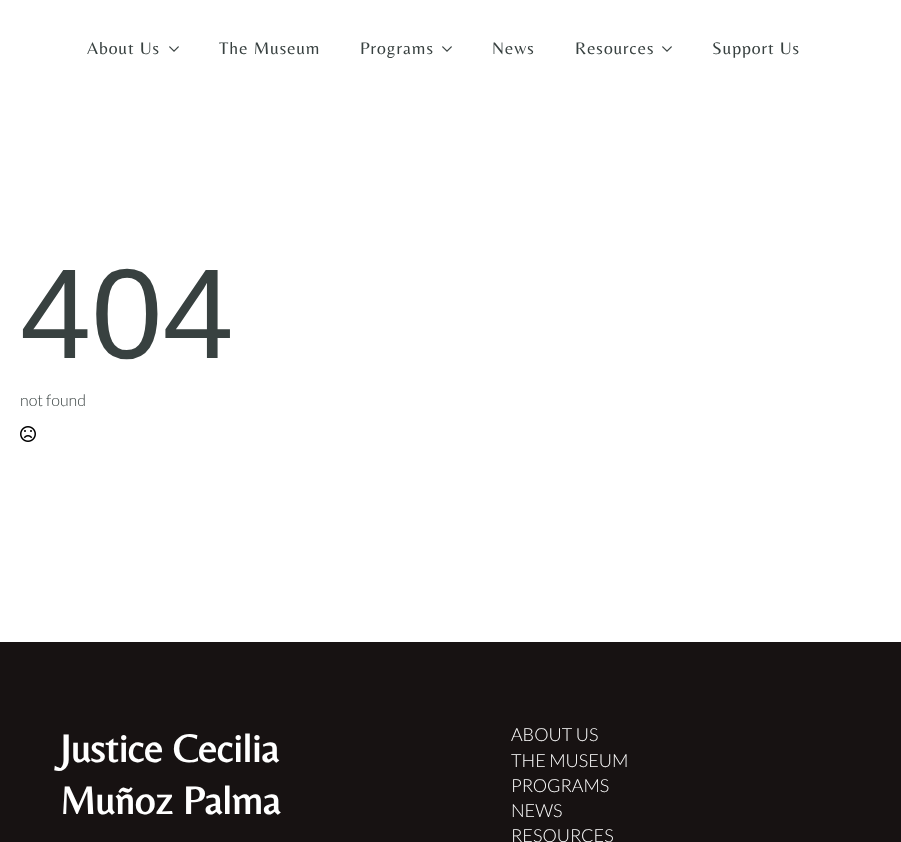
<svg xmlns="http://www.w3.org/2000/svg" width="901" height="842">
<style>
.a{font:17.5px Belleza;letter-spacing:1px;fill:#384140}
.b{font:128px Liberation Sans;fill:#384140}
.c{font:300 16px Lato;fill:#384140}
.d{font:bold 40px Belleza;fill:#fff}
.e{font:300 18px Lato;fill:#fff}
</style>
<rect width="100%" height="100%" fill="#fff"/>
<image href="1.png" x="169" y="46" width="10" height="6"/>
<image href="1.png" x="442" y="46" width="10" height="6"/>
<image href="1.png" x="662" y="46" width="10" height="6"/>
<image href="2.png" x="20" y="426" width="16" height="16"/>
<path fill="#171212" d="M0 642h901v200H0z"/>
<text class="a" x="87" y="54">About Us</text>
<text class="a" x="219" y="54">The Museum</text>
<text class="a" x="360" y="54">Programs</text>
<text class="a" x="492" y="54">News</text>
<text class="a" x="575" y="54">Resources</text>
<text class="a" x="712" y="54">Support Us</text>
<text class="b" x="20" y="358">404</text>
<text class="c" x="20" y="406">not found</text>
<text class="d" x="60" y="762">Justice Cecilia</text>
<text class="d" x="60" y="814">Muñoz Palma</text>
<text class="e" x="511" y="741">ABOUT US</text>
<text class="e" x="511" y="767">THE MUSEUM</text>
<text class="e" x="511" y="792">PROGRAMS</text>
<text class="e" x="511" y="817">NEWS</text>
<text class="e" x="511" y="842">RESOURCES</text>
</svg>
